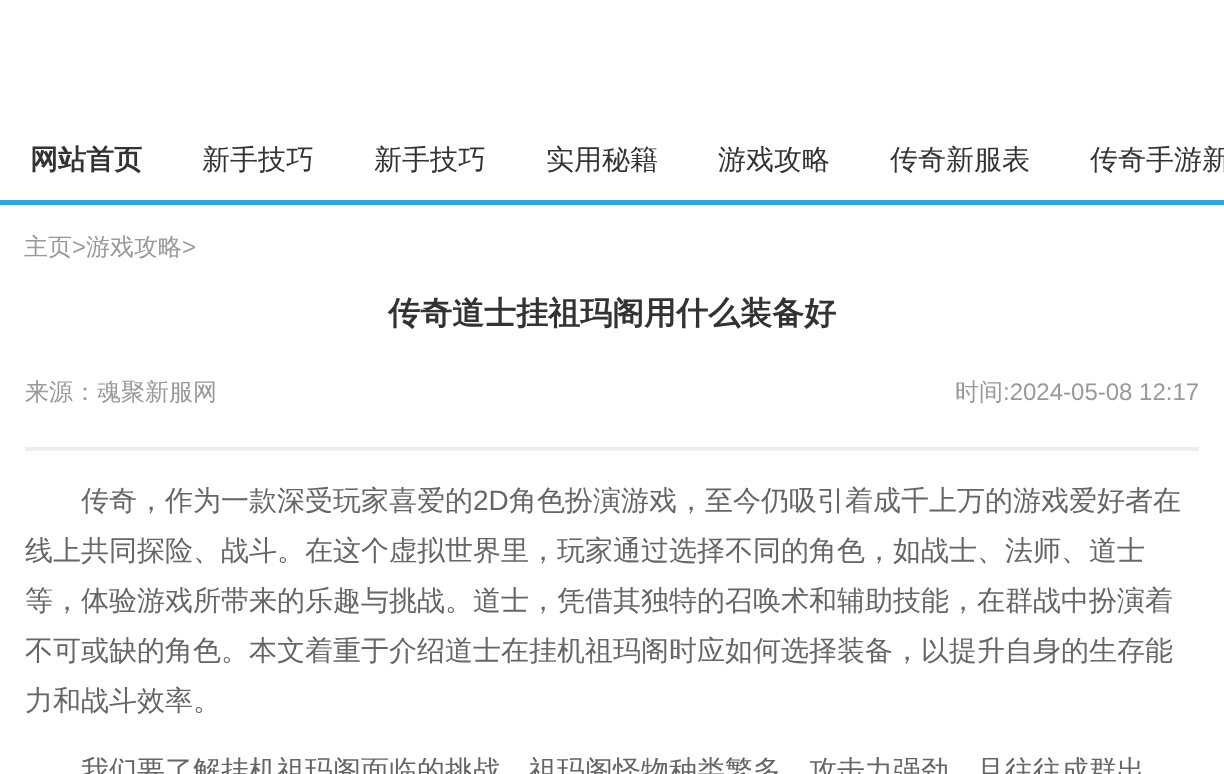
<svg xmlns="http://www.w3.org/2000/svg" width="1224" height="774">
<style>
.a{font:bold 28px WenQuanYi Zen Hei;fill:#333}
.b{font:500 28px WenQuanYi Zen Hei;fill:#333}
.c{font:500 24px WenQuanYi Zen Hei;fill:#999}
.d{font:24px Liberation Sans;fill:#999}
.e{font:bold 32px WenQuanYi Zen Hei;fill:#333}
.f{font:500 28px WenQuanYi Zen Hei;fill:#666}
.g{font:28px Liberation Sans;fill:#666}
</style>
<rect width="100%" height="100%" fill="#fff"/>
<path fill="#2ca6e0" d="M0 200h1224v5H0z"/>
<path fill="#eee" d="M25 447h1174v4H25z"/>
<text class="a" x="30" y="169">网站首页</text>
<text class="b" x="202" y="169">新手技巧</text>
<text class="b" x="374" y="169">新手技巧</text>
<text class="b" x="546" y="169">实用秘籍</text>
<text class="b" x="718" y="169">游戏攻略</text>
<text class="b" x="890" y="169">传奇新服表</text>
<text class="b" x="1090" y="169">传奇手游新</text>
<text class="c" x="24" y="255">主页</text>
<text class="d" x="72" y="255">&gt;</text>
<text class="c" x="86" y="255">游戏攻略</text>
<text class="d" x="182" y="255">&gt;</text>
<text class="e" x="388" y="324">传奇道士挂祖玛阁用什么装备好</text>
<text class="c" x="25" y="400">来源：魂聚新服网</text>
<text class="c" x="955" y="400">时间</text>
<text class="d" x="1003" y="400">:2024-05-08 12:17</text>
<text class="f" x="81" y="510">传奇，作为一款深受玩家喜爱的</text>
<text class="g" x="473" y="510">2D</text>
<text class="f" x="509" y="510">角色扮演游戏，至今仍吸引着成千上万的游戏爱好者在</text>
<text class="f" x="25" y="560">线上共同探险、战斗。在这个虚拟世界里，玩家通过选择不同的角色，如战士、法师、道士</text>
<text class="f" x="25" y="610">等，体验游戏所带来的乐趣与挑战。道士，凭借其独特的召唤术和辅助技能，在群战中扮演着</text>
<text class="f" x="25" y="660">不可或缺的角色。本文着重于介绍道士在挂机祖玛阁时应如何选择装备，以提升自身的生存能</text>
<text class="f" x="25" y="710">力和战斗效率。</text>
<text class="f" x="81" y="780">我们要了解挂机祖玛阁面临的挑战。祖玛阁怪物种类繁多，攻击力强劲，且往往成群出</text>
</svg>
